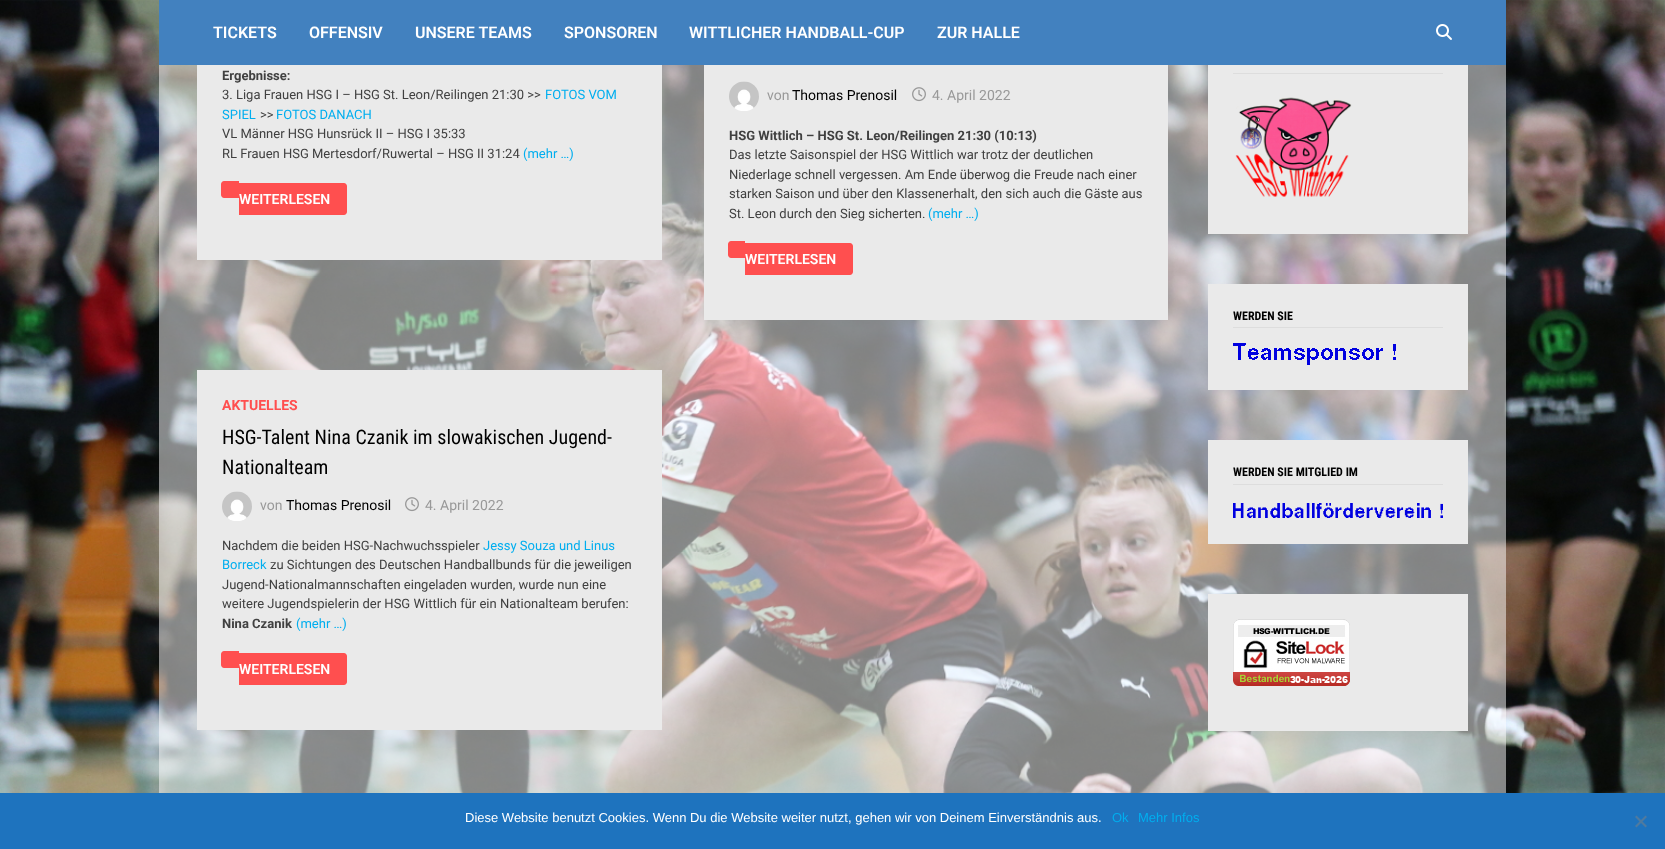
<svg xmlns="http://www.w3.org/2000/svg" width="1665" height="849">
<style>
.a{font:600 16px Roboto;fill:#fff}
.b{font:bold 13px Roboto;fill:#404040}
.c{font:13px Roboto;fill:#404040}
.d{font:13px Roboto;fill:#00aeef}
.e{font:600 14px Roboto;fill:#fff}
.f{font:14px Roboto;fill:#999}
.g{font:14px Roboto;fill:#000}
.h{font:bold 14px Roboto;fill:#ff4f4f}
.i{font:20px Roboto Condensed;fill:#000}
.j{font:bold 12px Roboto Condensed;fill:#000}
.k{font:13px Liberation Sans;fill:#fff}
.l{font:13px Liberation Sans;fill:#00aeef}
</style>
<rect width="100%" height="100%" fill="#fff"/>
<image href="1.png" x="0" y="0" width="1665" height="793"/>
<path fill="#4281bf" d="M159 0h1347v65H159z"/>
<image href="2.png" x="1436" y="24" width="16" height="16"/>
<path fill="#ffffff80" d="M159 65h1347v728H159z"/>
<path fill="#eaeaea" d="M197 65h465v195H197z"/>
<path fill="#ff4f4f" d="M224 181h15v17h-15c-1.5 0-3-1.5-3-3v-11c0-1.5 1.5-3 3-3z"/>
<path fill="#ff4f4f" d="M239 183h105c1.5 0 3 1.5 3 3v26c0 1.5-1.5 3-3 3h-105z"/>
<path fill="#eaeaea" d="M704 65h464v255H704z"/>
<image href="3.png" x="729" y="81" width="30" height="30"/>
<image href="4.png" x="912" y="87" width="14" height="15"/>
<path fill="#ff4f4f" d="M731 241h14v17h-14c-1.5 0-3-1.5-3-3v-11c0-1.5 1.5-3 3-3z"/>
<path fill="#ff4f4f" d="M745 243h105c1.5 0 3 1.5 3 3v26c0 1.5-1.5 3-3 3h-105z"/>
<path fill="#eaeaea" d="M197 370h465v360H197z"/>
<image href="5.png" x="222" y="491" width="30" height="30"/>
<image href="4.png" x="405" y="497" width="14" height="15"/>
<path fill="#ff4f4f" d="M224 651h15v17h-15c-1.5 0-3-1.5-3-3v-11c0-1.5 1.5-3 3-3z"/>
<path fill="#ff4f4f" d="M239 653h105c1.5 0 3 1.5 3 3v26c0 1.5-1.5 3-3 3h-105z"/>
<path fill="#eaeaea" d="M1208 65h260v169H1208z"/>
<path fill="#ddd" d="M1233 73h210v1H1233z"/>
<image href="6.png" x="1235" y="97" width="117" height="100"/>
<path fill="#eaeaea" d="M1208 284h260v106H1208z"/>
<path fill="#ddd" d="M1233 327h210v1H1233z"/>
<image href="7.png" x="1233" y="343" width="163" height="22"/>
<path fill="#eaeaea" d="M1208 440h260v104H1208z"/>
<path fill="#ddd" d="M1233 484h210v1H1233z"/>
<image href="8.png" x="1233" y="503" width="210" height="15"/>
<path fill="#eaeaea" d="M1208 594h260v137H1208z"/>
<image href="9.png" x="1233" y="619" width="117" height="67"/>
<path fill="#1e73be" d="M0 793h1665v56H0z"/>
<path fill="#4f7a9f" d="M1645.5 815.5l1.5 1.5l-10.5 10.5l-1.5-1.5z"/>
<path fill="#4f7a9f" d="M1635 817l1.5-1.5l10.5 10.5l-1.5 1.5z"/>
<text class="a" x="213" y="38">TICKETS</text>
<text class="a" x="309" y="38">OFFENSIV</text>
<text class="a" x="415" y="38">UNSERE TEAMS</text>
<text class="a" x="564" y="38">SPONSOREN</text>
<text class="a" x="689" y="38">WITTLICHER HANDBALL-CUP</text>
<text class="a" x="937" y="38">ZUR HALLE</text>
<text class="b" x="222" y="80">Ergebnisse:</text>
<text class="c" x="222" y="99">3. Liga Frauen HSG I – HSG St. Leon/Reilingen 21:30 &gt;&gt;</text>
<text class="d" x="545" y="99">FOTOS VOM</text>
<text class="d" x="222" y="119">SPIEL</text>
<text class="c" x="260" y="119">&gt;&gt;</text>
<text class="d" x="276" y="119">FOTOS DANACH</text>
<text class="c" x="222" y="138">VL Männer HSG Hunsrück II – HSG I 35:33</text>
<text class="c" x="222" y="158">RL Frauen HSG Mertesdorf/Ruwertal – HSG II 31:24</text>
<text class="d" x="523" y="158">(mehr …)</text>
<text class="e" x="239" y="204">WEITERLESEN</text>
<text class="f" x="767" y="100">von</text>
<text class="g" x="792" y="100">Thomas Prenosil</text>
<text class="f" x="932" y="100">4. April 2022</text>
<text class="b" x="729" y="140">HSG Wittlich – HSG St. Leon/Reilingen 21:30 (10:13)</text>
<text class="c" x="729" y="159">Das letzte Saisonspiel der HSG Wittlich war trotz der deutlichen</text>
<text class="c" x="729" y="179">Niederlage schnell vergessen. Am Ende überwog die Freude nach einer</text>
<text class="c" x="729" y="198">starken Saison und über den Klassenerhalt, den sich auch die Gäste aus</text>
<text class="c" x="729" y="218">St. Leon durch den Sieg sicherten.</text>
<text class="d" x="928" y="218">(mehr …)</text>
<text class="e" x="745" y="264">WEITERLESEN</text>
<text class="h" x="222" y="410">AKTUELLES</text>
<text class="i" x="222" y="444">HSG-Talent Nina Czanik im slowakischen Jugend-</text>
<text class="i" x="222" y="474">Nationalteam</text>
<text class="f" x="260" y="510">von</text>
<text class="g" x="286" y="510">Thomas Prenosil</text>
<text class="f" x="425" y="510">4. April 2022</text>
<text class="c" x="222" y="550">Nachdem die beiden HSG-Nachwuchsspieler</text>
<text class="d" x="483" y="550">Jessy Souza und Linus</text>
<text class="d" x="222" y="569">Borreck</text>
<text class="c" x="270" y="569">zu Sichtungen des Deutschen Handballbunds für die jeweiligen</text>
<text class="c" x="222" y="589">Jugend-Nationalmannschaften eingeladen wurden, wurde nun eine</text>
<text class="c" x="222" y="608">weitere Jugendspielerin der HSG Wittlich für ein Nationalteam berufen:</text>
<text class="b" x="222" y="628">Nina Czanik</text>
<text class="d" x="296" y="628">(mehr …)</text>
<text class="e" x="239" y="674">WEITERLESEN</text>
<text class="j" x="1233" y="320">WERDEN SIE</text>
<text class="j" x="1233" y="476">WERDEN SIE MITGLIED IM</text>
<text class="k" x="465" y="822">Diese Website benutzt Cookies. Wenn Du die Website weiter nutzt, gehen wir von Deinem Einverständnis aus.</text>
<text class="l" x="1112" y="822">Ok</text>
<text class="l" x="1138" y="822">Mehr Infos</text>
</svg>
